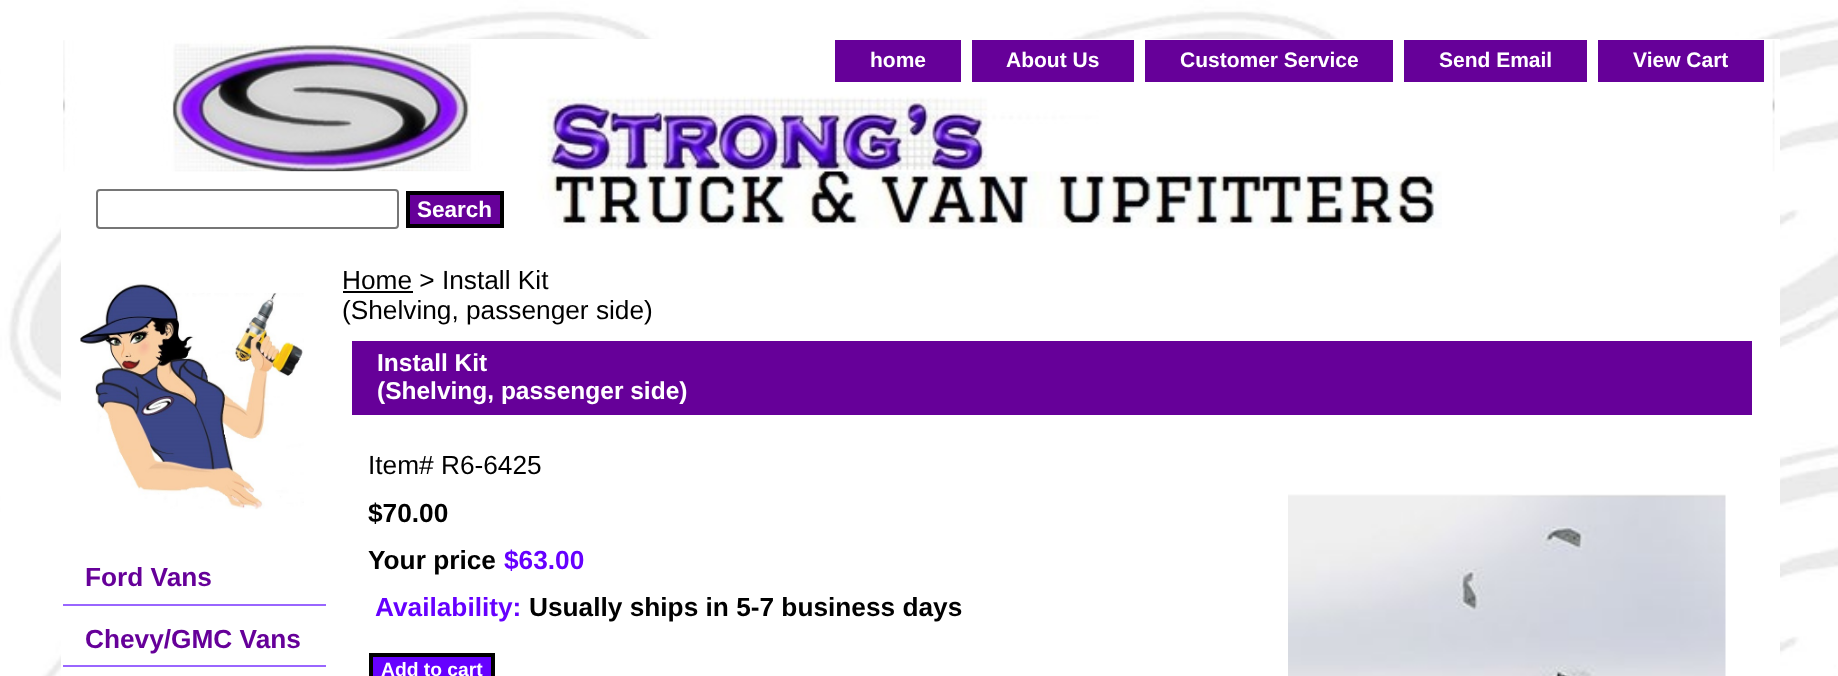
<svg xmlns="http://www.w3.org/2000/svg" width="1838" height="676">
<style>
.a{font:bold 21px Liberation Sans;fill:#fff}
.b{font:bold 22.5px Liberation Sans;fill:#fff}
.c{font:bold 26.25px Liberation Sans;fill:#609}
.d{font:26.25px Liberation Sans;fill:#000}
.e{font:bold 24.5px Liberation Sans;fill:#fff}
.f{font:bold 26.25px Liberation Sans;fill:#000}
.g{font:bold 26.25px Liberation Sans;fill:#60f}
.h{font:bold 19.25px Liberation Sans;fill:#fff}
</style>
<rect width="100%" height="100%" fill="#fff"/>
<image href="1.png" x="0" y="0" width="1838" height="676"/>
<path fill="#fff" d="M61 39h1719v637H61z"/>
<image href="2.png" x="63" y="40" width="1712" height="132"/>
<path fill="#609" d="M835 40h126v42H835z"/>
<path fill="#609" d="M972 40h162v42H972z"/>
<path fill="#609" d="M1145 40h248v42H1145z"/>
<path fill="#609" d="M1404 40h183v42H1404z"/>
<path fill="#609" d="M1598 40h166v42H1598z"/>
<image href="3.png" x="245" y="171" width="1197" height="58"/>
<rect fill="none" stroke="#767676" stroke-width="2" x="97" y="190" width="301" height="38" rx="3"/>
<path fill="#609" stroke="#000" stroke-width="4" d="M408 193h94v33H408z"/>
<image href="4.png" x="80" y="283" width="224" height="227"/>
<path fill="#96f" d="M63 604h263v2H63z"/>
<path fill="#96f" d="M63 665h263v2H63z"/>
<path fill="#000" d="M343 291h70v2H343z"/>
<path fill="#609" d="M352 341h1400v74H352z"/>
<path fill="#60f" stroke="#000" stroke-width="4" d="M371 655h122v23H371z"/>
<image href="5.png" x="1288" y="494" width="438" height="182"/>
<text class="a" x="870" y="67">home</text>
<text class="a" x="1006" y="67">About Us</text>
<text class="a" x="1180" y="67">Customer Service</text>
<text class="a" x="1439" y="67">Send Email</text>
<text class="a" x="1633" y="67">View Cart</text>
<text class="b" x="417" y="217">Search</text>
<text class="c" x="85" y="586">Ford Vans</text>
<text class="c" x="85" y="648">Chevy/GMC Vans</text>
<text class="d" x="342" y="289">Home &gt; Install Kit</text>
<text class="d" x="342" y="319">(Shelving, passenger side)</text>
<text class="e" x="377" y="371">Install Kit</text>
<text class="e" x="377" y="399">(Shelving, passenger side)</text>
<text class="d" x="368" y="474">Item# R6-6425</text>
<text class="f" x="368" y="522">$70.00</text>
<text class="f" x="368" y="569">Your price</text>
<text class="g" x="504" y="569">$63.00</text>
<text class="g" x="375" y="616">Availability:</text>
<text class="f" x="529" y="616">Usually ships in 5-7 business days</text>
<text class="h" x="381" y="676">Add to cart</text>
</svg>
